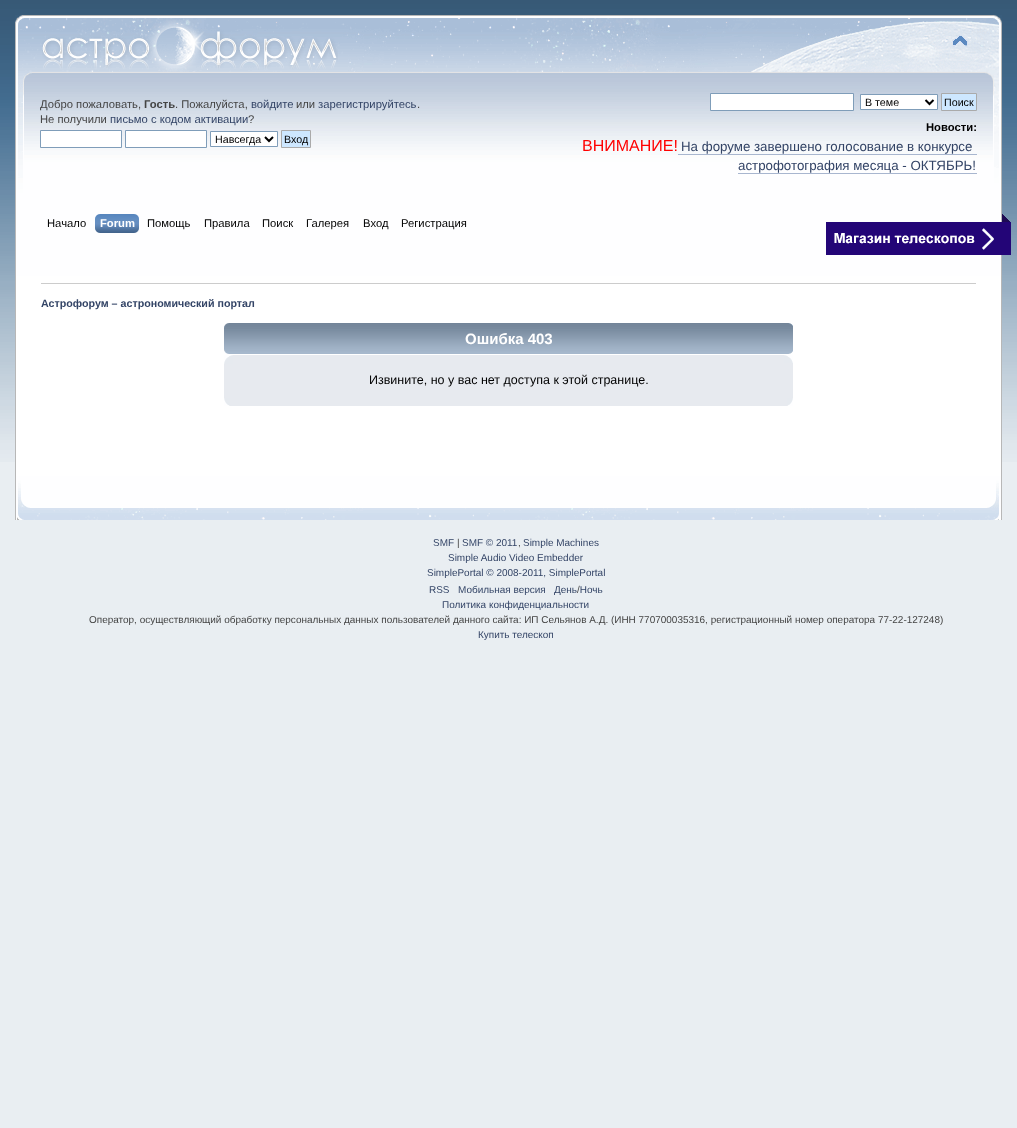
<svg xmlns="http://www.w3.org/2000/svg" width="1017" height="1128">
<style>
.a{font:11.25px Liberation Sans;fill:#444}
.b{font:bold 11.25px Liberation Sans;fill:#444}
.c{font:11.25px Liberation Sans;fill:#346}
.d{font:10.7px Liberation Sans;fill:#000}
.e{font:bold 11.25px Liberation Sans;fill:#000}
.f{font:16px Liberation Sans;fill:#f00}
.g{font:13.3px Liberation Sans;fill:#346}
.h{font:11.25px Liberation Sans;fill:#000}
.i{font:bold 11.25px Liberation Sans;fill:#fff}
.j{font:bold 10.7px Liberation Sans;fill:#346}
.k{font:bold 15px Liberation Sans;fill:#fff}
.l{font:12.5px Liberation Sans;fill:#000}
.m{font:9.98px Liberation Sans;fill:#346}
.n{font:9.98px Liberation Sans;fill:#444}
</style>
<rect width="100%" height="100%" fill="#e9eef2"/>
<image href="1.png" x="0" y="0" width="1017" height="462"/>
<image href="2.png" x="15" y="15" width="22" height="261"/>
<image href="3.png" x="37" y="15" width="965" height="261"/>
<image href="4.png" x="42" y="20" width="296" height="52"/>
<image href="5.png" x="952" y="35" width="16" height="12"/>
<path fill="#fff" stroke="#7f9db9" d="M40.5 130.5h81v17H40.5z"/>
<path fill="#fff" stroke="#7f9db9" d="M125.5 130.5h81v17H125.5z"/>
<path fill="#fff" stroke="#7f9db9" d="M210.5 131.5h67v15H210.5z"/>
<path fill="none" stroke="#000" stroke-width="2" d="M265 137l4 4l4-4"/>
<path fill="#cde7ff" stroke="#aaa" d="M281.5 130.5h29v17H281.5z"/>
<path fill="#fff" stroke="#7f9db9" d="M710.5 93.5h143v17H710.5z"/>
<path fill="#fff" stroke="#7f9db9" d="M860.5 94.5h77v15H860.5z"/>
<path fill="none" stroke="#000" stroke-width="2" d="M925.5 100l4 4l4-4"/>
<path fill="#cde7ff" stroke="#aaa" d="M941.5 93.5h35v17H941.5z"/>
<path fill="#a8b6cf" d="M678 154h299v1H678z"/>
<path fill="#a8b6cf" d="M738 173h239v1H738z"/>
<image href="6.png" x="100" y="214" width="39" height="19"/>
<image href="7.png" x="95" y="214" width="5" height="19"/>
<image href="8.png" x="826" y="214" width="185" height="41"/>
<path fill="#fff" d="M16 276h985v200H16z"/>
<path fill="#b7b7b7" d="M15 276h1v200H15z"/>
<path fill="#b7b7b7" d="M1001 276h1v200H1001z"/>
<path fill="#ccc" d="M41 283h935v1H41z"/>
<image href="9.png" x="224" y="323" width="564" height="31"/>
<image href="10.png" x="788" y="323" width="5" height="31"/>
<path fill="#e7eaef" d="M224 355h569v51H224z"/>
<image href="11.png" x="224" y="355" width="9" height="9"/>
<image href="12.png" x="784" y="355" width="9" height="8"/>
<image href="13.png" x="224" y="398" width="6" height="8"/>
<image href="14.png" x="787" y="398" width="6" height="8"/>
<image href="15.png" x="15" y="476" width="22" height="44"/>
<image href="16.png" x="37" y="476" width="965" height="44"/>
<text class="a" x="40" y="108">Добро пожаловать,</text>
<text class="b" x="144" y="108">Гость</text>
<text class="a" x="175" y="108">. Пожалуйста,</text>
<text class="c" x="251" y="108">войдите</text>
<text class="a" x="296" y="108">или</text>
<text class="c" x="318" y="108">зарегистрируйтесь</text>
<text class="a" x="417" y="108">.</text>
<text class="a" x="40" y="123">Не получили</text>
<text class="c" x="110" y="123">письмо с кодом активации</text>
<text class="a" x="248" y="123">?</text>
<text class="d" x="215" y="143">Навсегда</text>
<text class="d" x="284" y="143">Вход</text>
<text class="d" x="865" y="106">В теме</text>
<text class="d" x="944" y="106">Поиск</text>
<text class="e" x="926" y="131">Новости:</text>
<text class="f" x="582" y="151">ВНИМАНИЕ!</text>
<text class="g" x="681" y="151">На форуме завершено голосование в конкурсе</text>
<text class="g" x="738" y="170">астрофотография месяца - ОКТЯБРЬ!</text>
<text class="h" x="47" y="227">Начало</text>
<text class="i" x="100" y="227">Forum</text>
<text class="h" x="147" y="227">Помощь</text>
<text class="h" x="204" y="227">Правила</text>
<text class="h" x="262" y="227">Поиск</text>
<text class="h" x="306" y="227">Галерея</text>
<text class="h" x="363" y="227">Вход</text>
<text class="h" x="401" y="227">Регистрация</text>
<text class="j" x="41" y="307">Астрофорум – астрономический портал</text>
<text class="k" x="465" y="344">Ошибка 403</text>
<text class="l" x="369" y="384">Извините, но у вас нет доступа к этой странице.</text>
<text class="m" x="433" y="546">SMF</text>
<text class="n" x="457" y="546">|</text>
<text class="m" x="462" y="546">SMF © 2011</text>
<text class="n" x="518" y="546">,</text>
<text class="m" x="523" y="546">Simple Machines</text>
<text class="m" x="448" y="561">Simple Audio Video Embedder</text>
<text class="m" x="427" y="576">SimplePortal © 2008-2011, SimplePortal</text>
<text class="m" x="429" y="593">RSS</text>
<text class="m" x="458" y="593">Мобильная версия</text>
<text class="m" x="554" y="593">День Ночь</text>
<text class="n" x="577" y="593">/</text>
<text class="m" x="442" y="608">Политика конфиденциальности</text>
<text class="n" x="89" y="623">Оператор, осуществляющий обработку персональных данных пользователей данного сайта: ИП Сельянов А.Д. (ИНН 770700035316, регистрационный номер оператора 77-22-127248)</text>
<text class="m" x="478" y="638">Купить телескоп</text>
</svg>
